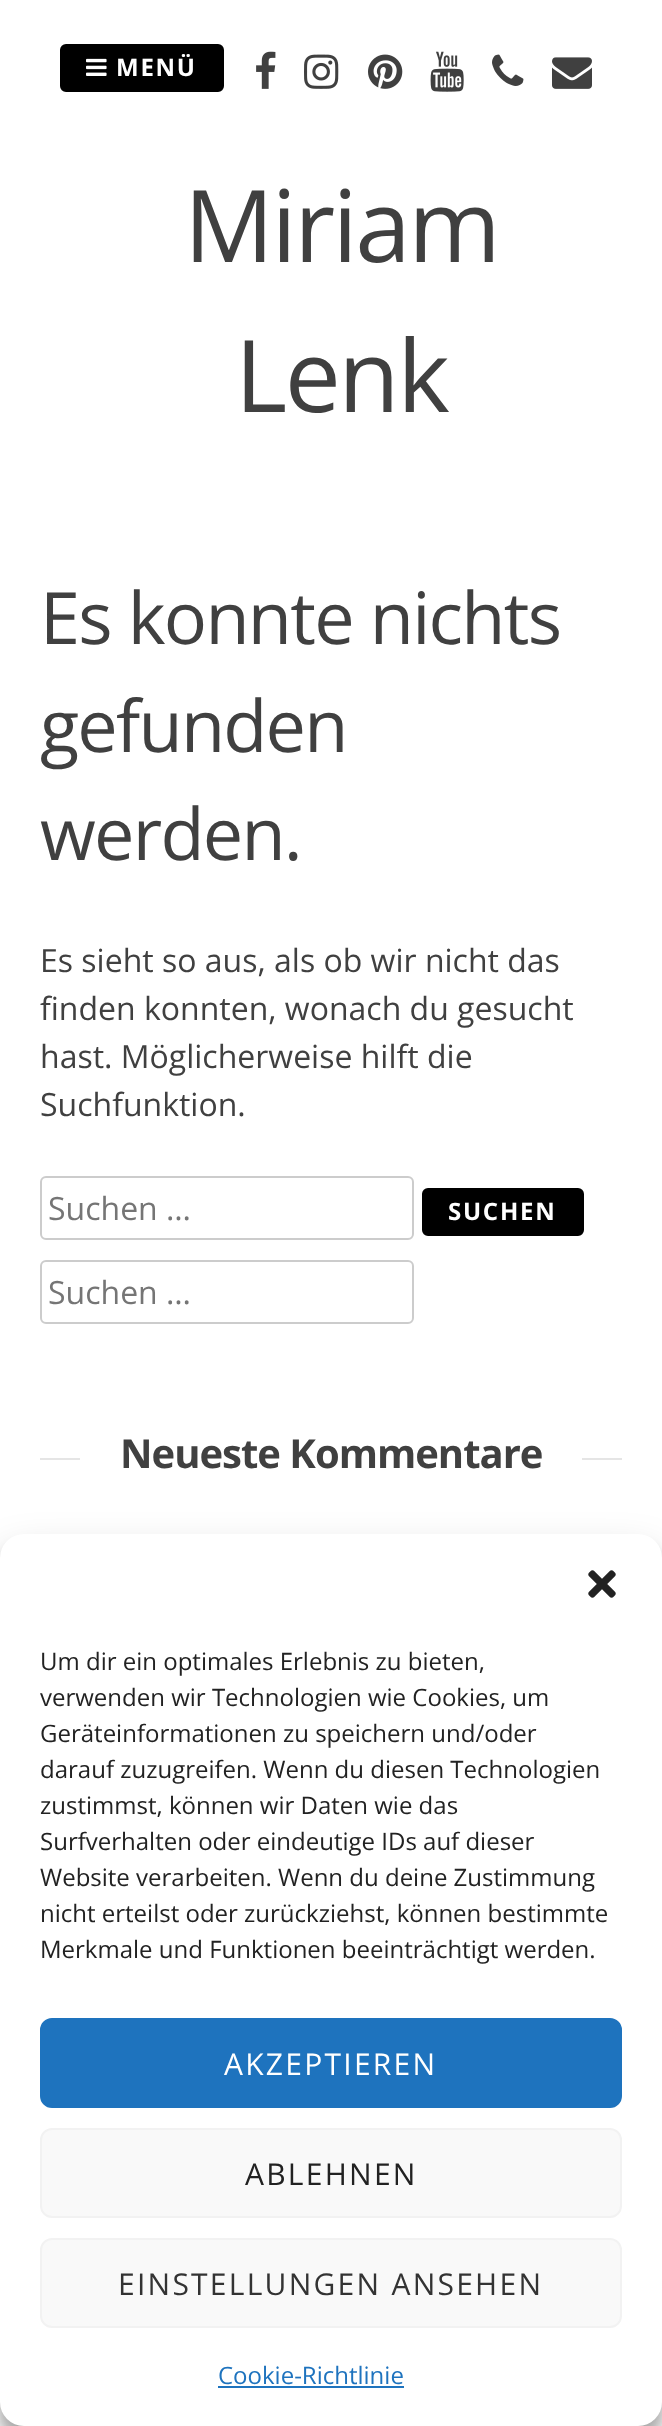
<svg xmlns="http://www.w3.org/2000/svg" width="662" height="2426">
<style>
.a{font:bold 24px Open Sans;letter-spacing:1.75px;fill:#fff}
.b{font:100px Open Sans;letter-spacing:-2.5px;fill:#404040}
.c{font:72px Open Sans;letter-spacing:-1.75px;fill:#404040}
.d{font:32px Open Sans;fill:#404040}
.e{font:32px Open Sans;fill:#757575}
.f{font:bold 40px Open Sans;letter-spacing:-1px;fill:#404040}
.g{font:24px Open Sans;fill:#222}
.h{font:30px Open Sans;letter-spacing:2.25px;fill:#fff}
.i{font:30px Open Sans;letter-spacing:2.25px;fill:#222}
.j{font:30px Open Sans;letter-spacing:2.25px;fill:#333}
.k{font:24px Open Sans;fill:#1e73be}
</style>
<rect width="100%" height="100%" fill="#fff"/>
<rect fill="#000" stroke="#000" stroke-width="2" x="61" y="45" width="162" height="46" rx="5"/>
<image href="1.png" x="86" y="58" width="21" height="18"/>
<image href="2.png" x="256" y="51" width="20" height="38"/>
<image href="3.png" x="304" y="54" width="35" height="35"/>
<image href="4.png" x="368" y="54" width="35" height="35"/>
<image href="5.png" x="430" y="51" width="34" height="41"/>
<image href="6.png" x="492" y="54" width="32" height="32"/>
<image href="7.png" x="552" y="57" width="40" height="32"/>
<rect fill="none" stroke="#ccc" stroke-width="2" x="41" y="1177" width="372" height="62" rx="5"/>
<rect fill="#000" stroke="#000" stroke-width="2" x="423" y="1189" width="160" height="46" rx="5"/>
<rect fill="none" stroke="#ccc" stroke-width="2" x="41" y="1261" width="372" height="62" rx="5"/>
<path fill="#e5e5e5" d="M40 1458h582v2H40z"/>
<path fill="#fff" d="M80 1458h502v2H80z"/>
<rect fill="#0000003b" filter="blur(6px)" y="1546" width="662" height="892" rx="24"/>
<rect fill="#00000030" filter="blur(20px)" y="1554" width="662" height="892" rx="24"/>
<rect fill="#fff" y="1534" width="662" height="892" rx="24"/>
<image href="8.png" x="588" y="1570" width="28" height="28"/>
<rect fill="#1e73be" stroke="#1e73be" stroke-width="2" x="41" y="2019" width="580" height="88" rx="11"/>
<rect fill="#f9f9f9" stroke="#f2f2f2" stroke-width="2" x="41" y="2129" width="580" height="88" rx="11"/>
<rect fill="#f9f9f9" stroke="#f2f2f2" stroke-width="2" x="41" y="2239" width="580" height="88" rx="11"/>
<path fill="#1e73be" d="M218 2386h186v2H218z"/>
<text class="a" x="116" y="76">MENÜ</text>
<text class="b" x="184" y="262">Miriam</text>
<text class="b" x="235" y="412">Lenk</text>
<text class="c" x="40" y="644">Es konnte nichts</text>
<text class="c" x="40" y="752">gefunden</text>
<text class="c" x="40" y="860">werden.</text>
<text class="d" x="40" y="972">Es sieht so aus, als ob wir nicht das</text>
<text class="d" x="40" y="1020">finden konnten, wonach du gesucht</text>
<text class="d" x="40" y="1068">hast. Möglicherweise hilft die</text>
<text class="d" x="40" y="1116">Suchfunktion.</text>
<text class="e" x="48" y="1220">Suchen …</text>
<text class="a" x="448" y="1220">SUCHEN</text>
<text class="e" x="48" y="1304">Suchen …</text>
<text class="f" x="120" y="1468">Neueste Kommentare</text>
<text class="g" x="40" y="1670">Um dir ein optimales Erlebnis zu bieten,</text>
<text class="g" x="40" y="1706">verwenden wir Technologien wie Cookies, um</text>
<text class="g" x="40" y="1742">Geräteinformationen zu speichern und/oder</text>
<text class="g" x="40" y="1778">darauf zuzugreifen. Wenn du diesen Technologien</text>
<text class="g" x="40" y="1814">zustimmst, können wir Daten wie das</text>
<text class="g" x="40" y="1850">Surfverhalten oder eindeutige IDs auf dieser</text>
<text class="g" x="40" y="1886">Website verarbeiten. Wenn du deine Zustimmung</text>
<text class="g" x="40" y="1922">nicht erteilst oder zurückziehst, können bestimmte</text>
<text class="g" x="40" y="1958">Merkmale und Funktionen beeinträchtigt werden.</text>
<text class="h" x="224" y="2075">AKZEPTIEREN</text>
<text class="i" x="245" y="2185">ABLEHNEN</text>
<text class="j" x="118" y="2295">EINSTELLUNGEN ANSEHEN</text>
<text class="k" x="218" y="2384">Cookie-Richtlinie</text>
</svg>
